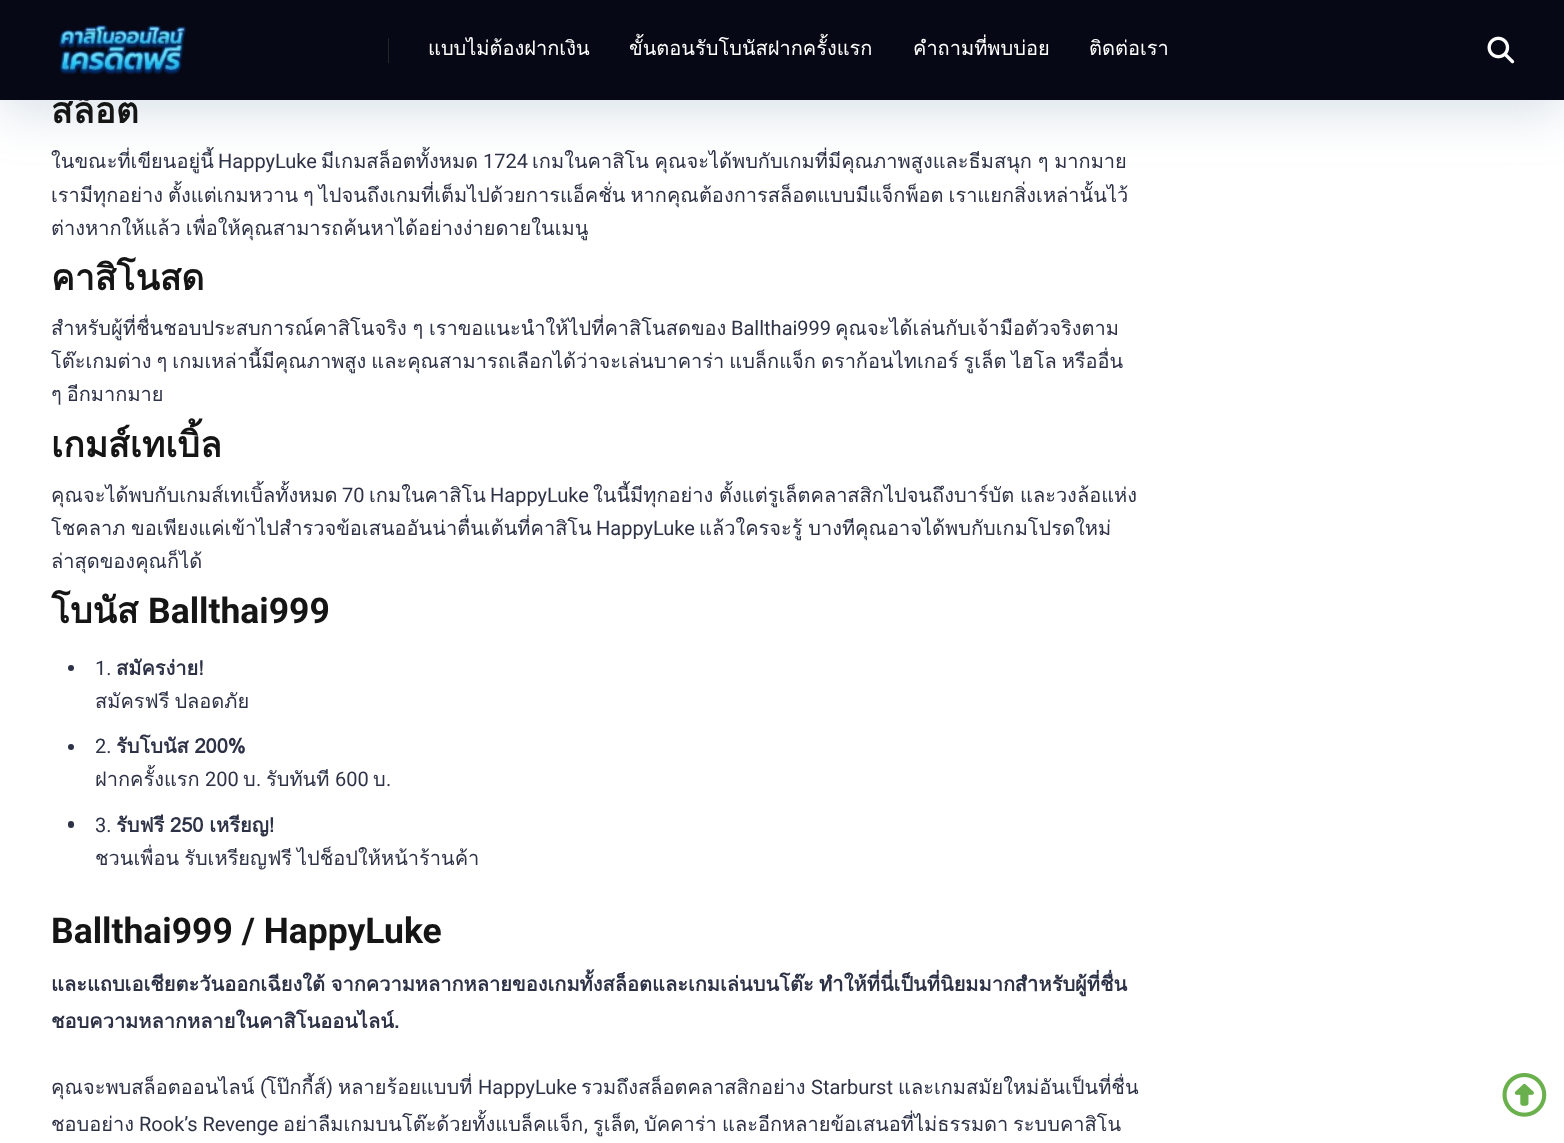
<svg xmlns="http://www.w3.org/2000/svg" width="1564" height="1143">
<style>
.a{font:bold 35.5px Loma;fill:#151515}
.b{font:20px Loma;fill:#fff}
.c{font:20px Loma;fill:#2e3246}
.d{font:20px Roboto;fill:#2e3246}
.e{font:bold 35.5px Roboto;fill:#151515}
.f{font:bold 20px Loma;fill:#2e3246}
</style>
<rect width="100%" height="100%" fill="#fff"/>
<path fill="#6d8dad40" filter="blur(25px)" d="M0 13h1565v100H0z"/>
<circle fill="#2e3246" cx="71" cy="668" r="3"/>
<circle fill="#2e3246" cx="71" cy="747" r="3"/>
<rect fill="#2e3246" x="68" y="821" width="6" height="7" rx="3"/>
<image href="3.png" x="1502" y="1073" width="45" height="44"/>
<text class="a" x="51" y="123">สล็อต</text>
<path fill="#060915" d="M0 0h1564v100H0z"/>
<image href="2.png" x="1487" y="36" width="28" height="28"/>
<text class="b" x="1089" y="55">ติดต่อเรา</text>
<text class="b" x="913" y="55">คำถามที่พบบ่อย</text>
<text class="b" x="629" y="55">ขั้นตอนรับโบนัสฝากครั้งแรก</text>
<text class="b" x="428" y="55">แบบไม่ต้องฝากเงิน</text>
<path fill="#212628" d="M388 38h1v25H388z"/>
<image href="1.png" x="58" y="25" width="129" height="50"/>
<text class="c" x="51" y="168">ในขณะที่เขียนอยู่นี้</text>
<text class="d" x="218" y="168">HappyLuke</text>
<text class="c" x="321" y="168">มีเกมสล็อตทั้งหมด</text>
<text class="d" x="483" y="168">1724</text>
<text class="c" x="532" y="168" word-spacing="-1">เกมในคาสิโน คุณจะได้พบกับเกมที่มีคุณภาพสูงและธีมสนุก ๆ มากมาย</text>
<text class="c" x="51" y="202" word-spacing="-1.75">เรามีทุกอย่าง ตั้งแต่เกมหวาน ๆ ไปจนถึงเกมที่เต็มไปด้วยการแอ็คชั่น หากคุณต้องการสล็อตแบบมีแจ็กพ็อต เราแยกสิ่งเหล่านั้นไว้</text>
<text class="c" x="51" y="235" word-spacing="-1.75">ต่างหากให้แล้ว เพื่อให้คุณสามารถค้นหาได้อย่างง่ายดายในเมนู</text>
<text class="a" x="51" y="290">คาสิโนสด</text>
<text class="c" x="51" y="335" word-spacing="-1">สำหรับผู้ที่ชื่นชอบประสบการณ์คาสิโนจริง ๆ เราขอแนะนำให้ไปที่คาสิโนสดของ</text>
<text class="d" x="731" y="335">Ballthai999</text>
<text class="c" x="835" y="335">คุณจะได้เล่นกับเจ้ามือตัวจริงตาม</text>
<text class="c" x="51" y="368" word-spacing="-1.75">โต๊ะเกมต่าง ๆ เกมเหล่านี้มีคุณภาพสูง และคุณสามารถเลือกได้ว่าจะเล่นบาคาร่า แบล็กแจ็ก ดราก้อนไทเกอร์ รูเล็ต ไฮโล หรืออื่น</text>
<text class="c" x="51" y="401" word-spacing="-1.75">ๆ อีกมากมาย</text>
<text class="a" x="51" y="457">เกมส์เทเบิ้ล</text>
<text class="c" x="51" y="502">คุณจะได้พบกับเกมส์เทเบิ้ลทั้งหมด</text>
<text class="d" x="342" y="502">70</text>
<text class="c" x="369" y="502">เกมในคาสิโน</text>
<text class="d" x="490" y="502">HappyLuke</text>
<text class="c" x="593" y="502" word-spacing="-1">ในนี้มีทุกอย่าง ตั้งแต่รูเล็ตคลาสสิกไปจนถึงบาร์บัต และวงล้อแห่ง</text>
<text class="c" x="51" y="535" word-spacing="-1">โชคลาภ ขอเพียงแค่เข้าไปสำรวจข้อเสนออันน่าตื่นเต้นที่คาสิโน</text>
<text class="d" x="596" y="535">HappyLuke</text>
<text class="c" x="699" y="535" word-spacing="-1">แล้วใครจะรู้ บางทีคุณอาจได้พบกับเกมโปรดใหม่</text>
<text class="c" x="51" y="568">ล่าสุดของคุณก็ได้</text>
<text class="a" x="51" y="623">โบนัส</text>
<text class="e" x="148" y="623">Ballthai999</text>
<text class="d" x="95" y="675">1.</text>
<text class="f" x="116" y="675">สมัครง่าย!</text>
<text class="c" x="95" y="708" word-spacing="-1.75">สมัครฟรี ปลอดภัย</text>
<text class="d" x="95" y="753">2.</text>
<text class="f" x="116" y="753" word-spacing="-1">รับโบนัส 200%</text>
<text class="c" x="95" y="786">ฝากครั้งแรก</text>
<text class="d" x="205" y="786">200</text>
<text class="c" x="243" y="786">บ</text>
<text class="d" x="335" y="786">600</text>
<text class="c" x="373" y="786">บ</text>
<text class="d" x="256" y="786">.</text>
<text class="c" x="266" y="786">รับทันที</text>
<text class="d" x="386" y="786">.</text>
<text class="d" x="95" y="832">3.</text>
<text class="f" x="116" y="832" word-spacing="-1">รับฟรี 250 เหรียญ!</text>
<text class="c" x="95" y="865" word-spacing="-1.75">ชวนเพื่อน รับเหรียญฟรี ไปช็อปให้หน้าร้านค้า</text>
<text class="e" x="51" y="943">Ballthai999 / HappyLuke</text>
<text class="f" x="51" y="991" word-spacing="-1">และแถบเอเชียตะวันออกเฉียงใต้ จากความหลากหลายของเกมทั้งสล็อตและเกมเล่นบนโต๊ะ ทำให้ที่นี่เป็นที่นิยมมากสำหรับผู้ที่ชื่น</text>
<text class="f" x="51" y="1028">ชอบความหลากหลายในคาสิโนออนไลน์.</text>
<text class="c" x="51" y="1094">คุณจะพบสล็อตออนไลน์</text>
<text class="d" x="260" y="1094">(</text>
<text class="c" x="266" y="1094">โป๊กกี้ส์</text>
<text class="d" x="326" y="1094">)</text>
<text class="c" x="338" y="1094">หลายร้อยแบบที่</text>
<text class="d" x="478" y="1094">HappyLuke</text>
<text class="c" x="581" y="1094">รวมถึงสล็อตคลาสสิกอย่าง</text>
<text class="d" x="811" y="1094">Starburst</text>
<text class="c" x="898" y="1094">และเกมสมัยใหม่อันเป็นที่ชื่น</text>
<text class="c" x="51" y="1131">ชอบอย่าง</text>
<text class="d" x="139" y="1131">Rook’s Revenge</text>
<text class="c" x="283" y="1131">อย่าลืมเกมบนโต๊ะด้วยทั้งแบล็คแจ็ก</text>
<text class="c" x="722" y="1131">และอีกหลายข้อเสนอที่ไม่ธรรมดา</text>
<text class="c" x="1013" y="1131">ระบบคาสิโน</text>
<text class="d" x="584" y="1131">,</text>
<text class="c" x="593" y="1131">รูเล็ต</text>
<text class="d" x="635" y="1131">,</text>
<text class="c" x="644" y="1131">บัคคาร่า</text>
</svg>
